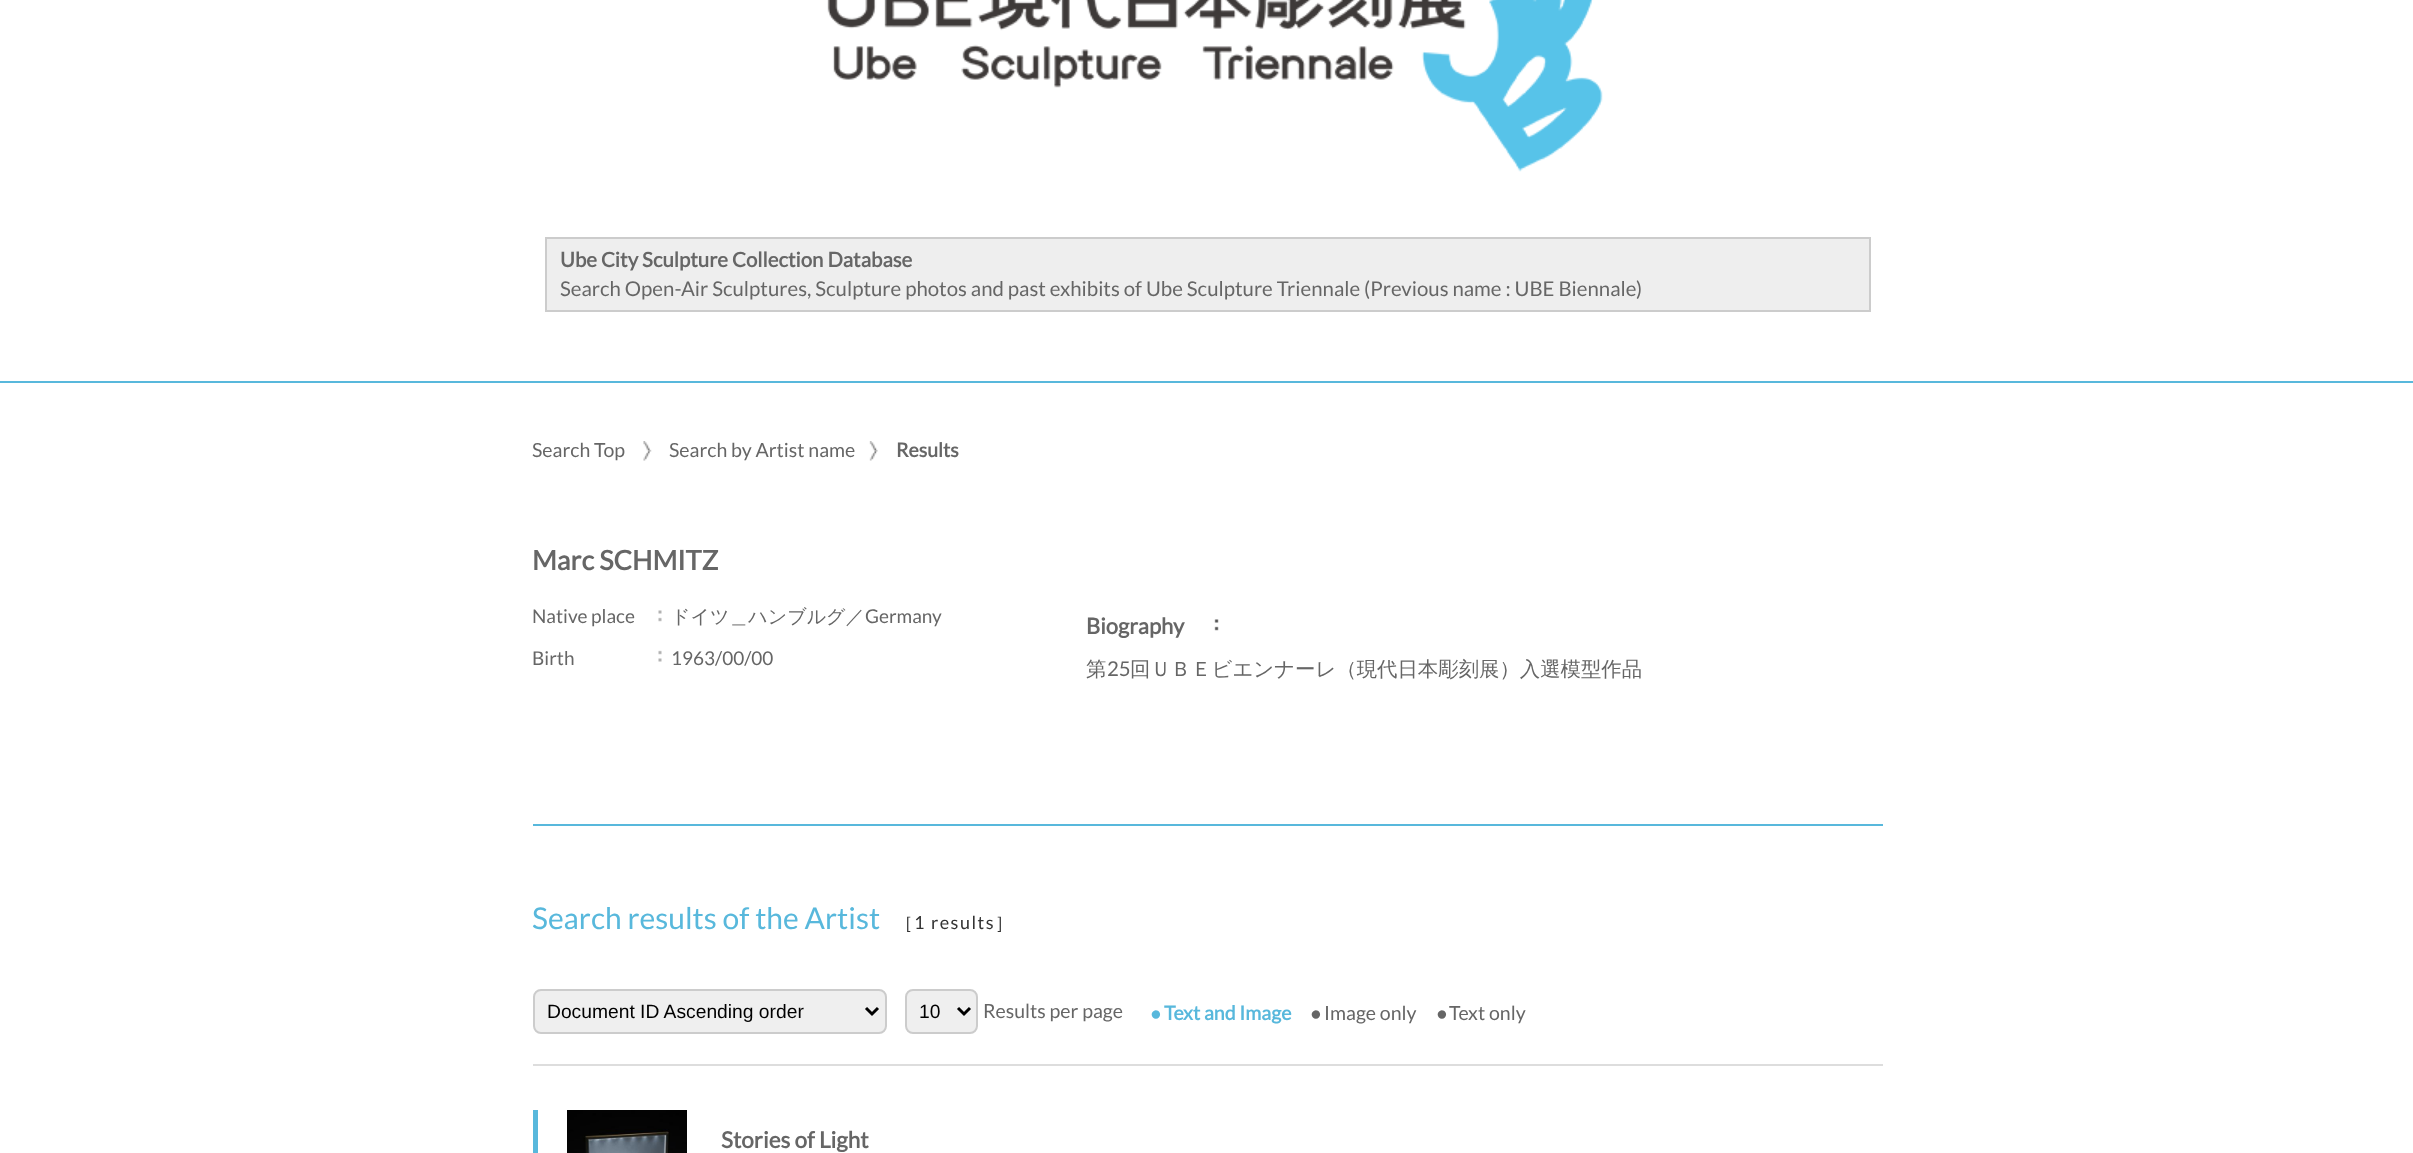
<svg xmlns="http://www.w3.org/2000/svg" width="2413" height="1153">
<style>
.a{font:bold 20.4px Lato;fill:#666}
.b{font:20.4px Lato;fill:#666}
.c{font:19.5px Lato;fill:#666}
.d{font:bold 19.5px Lato;fill:#666}
.e{font:bold 27px Lato;fill:#666}
.f{font:19px Lato;fill:#666}
.g{font:500 19px WenQuanYi Zen Hei;fill:#666}
.h{font:bold 22px Lato;fill:#666}
.i{font:500 20.4px WenQuanYi Zen Hei;fill:#666}
.j{font:30px Lato;fill:#58b8dc}
.k{font:500 18px WenQuanYi Zen Hei;letter-spacing:1.5px;fill:#333}
.l{font:18px Lato;letter-spacing:1.5px;fill:#333}
.m{font:19.25px Liberation Sans;fill:#000}
.n{font:bold 19.5px Liberation Sans;fill:#58b8dc}
.o{font:bold 19.5px Lato;fill:#58b8dc}
.p{font:19.5px Liberation Sans;fill:#666}
.q{font:bold 22.5px Lato;fill:#666}
</style>
<rect width="100%" height="100%" fill="#fff"/>
<image href="1.png" x="827" y="0" width="776" height="172"/>
<path fill="#eee" stroke="#ccc" stroke-width="2" d="M546 238h1324v73H546z"/>
<path fill="#58b8dc" d="M0 381h2413v2H0z"/>
<image href="2.png" x="643" y="441" width="9" height="20"/>
<image href="3.png" x="869" y="441" width="9" height="20"/>
<image href="4.png" x="658" y="610" width="4" height="12"/>
<image href="5.png" x="658" y="650" width="4" height="12"/>
<image href="6.png" x="1214" y="619" width="5" height="12"/>
<path fill="#58b8dc" d="M533 824h1350v2H533z"/>
<rect fill="#efefef" stroke="#ccc" stroke-width="2" x="534" y="990" width="352" height="43" rx="7"/>
<path fill="none" stroke="#000" stroke-width="3" d="M866 1008l6 6l6-6"/>
<rect fill="#efefef" stroke="#ccc" stroke-width="2" x="906" y="990" width="71" height="43" rx="7"/>
<path fill="none" stroke="#000" stroke-width="3" d="M958 1008l6 6l6-6"/>
<path fill="#ddd" d="M533 1064h1350v2H533z"/>
<path fill="#58b8dc" d="M533 1110h5v43H533z"/>
<image href="7.png" x="567" y="1110" width="120" height="43"/>
<text class="a" x="560" y="267">Ube City Sculpture Collection Database</text>
<text class="b" x="560" y="296">Search Open-Air Sculptures, Sculpture photos and past exhibits of Ube Sculpture Triennale (Previous name : UBE Biennale)</text>
<text class="c" x="532" y="457">Search Top</text>
<text class="c" x="669" y="457">Search by Artist name</text>
<text class="d" x="896" y="457">Results</text>
<text class="e" x="532" y="570">Marc SCHMITZ</text>
<text class="f" x="532" y="623">Native place</text>
<text class="g" x="671" y="623">ドイツ＿ハンブルグ／</text>
<text class="f" x="865" y="623">Germany</text>
<text class="f" x="532" y="665">Birth</text>
<text class="f" x="671" y="665">1963/00/00</text>
<text class="h" x="1086" y="634">Biography</text>
<text class="i" x="1086" y="676">第</text>
<text class="b" x="1107" y="676">25</text>
<text class="i" x="1130" y="676">回ＵＢＥビエンナーレ（現代日本彫刻展）入選模型作品</text>
<text class="j" x="532" y="929">Search results of the Artist</text>
<text class="k" x="895" y="929">［</text>
<text class="l" x="914" y="929">1 results</text>
<text class="k" x="995" y="929">］</text>
<text class="m" x="547" y="1018">Document ID Ascending order</text>
<text class="m" x="919" y="1018">10</text>
<text class="c" x="983" y="1018">Results per page</text>
<text class="n" x="1150" y="1020">●</text>
<text class="o" x="1164" y="1020">Text and Image</text>
<text class="p" x="1310" y="1020">●</text>
<text class="c" x="1324" y="1020">Image only</text>
<text class="p" x="1436" y="1020">●</text>
<text class="c" x="1449" y="1020">Text only</text>
<text class="q" x="721" y="1148">Stories of Light</text>
</svg>
